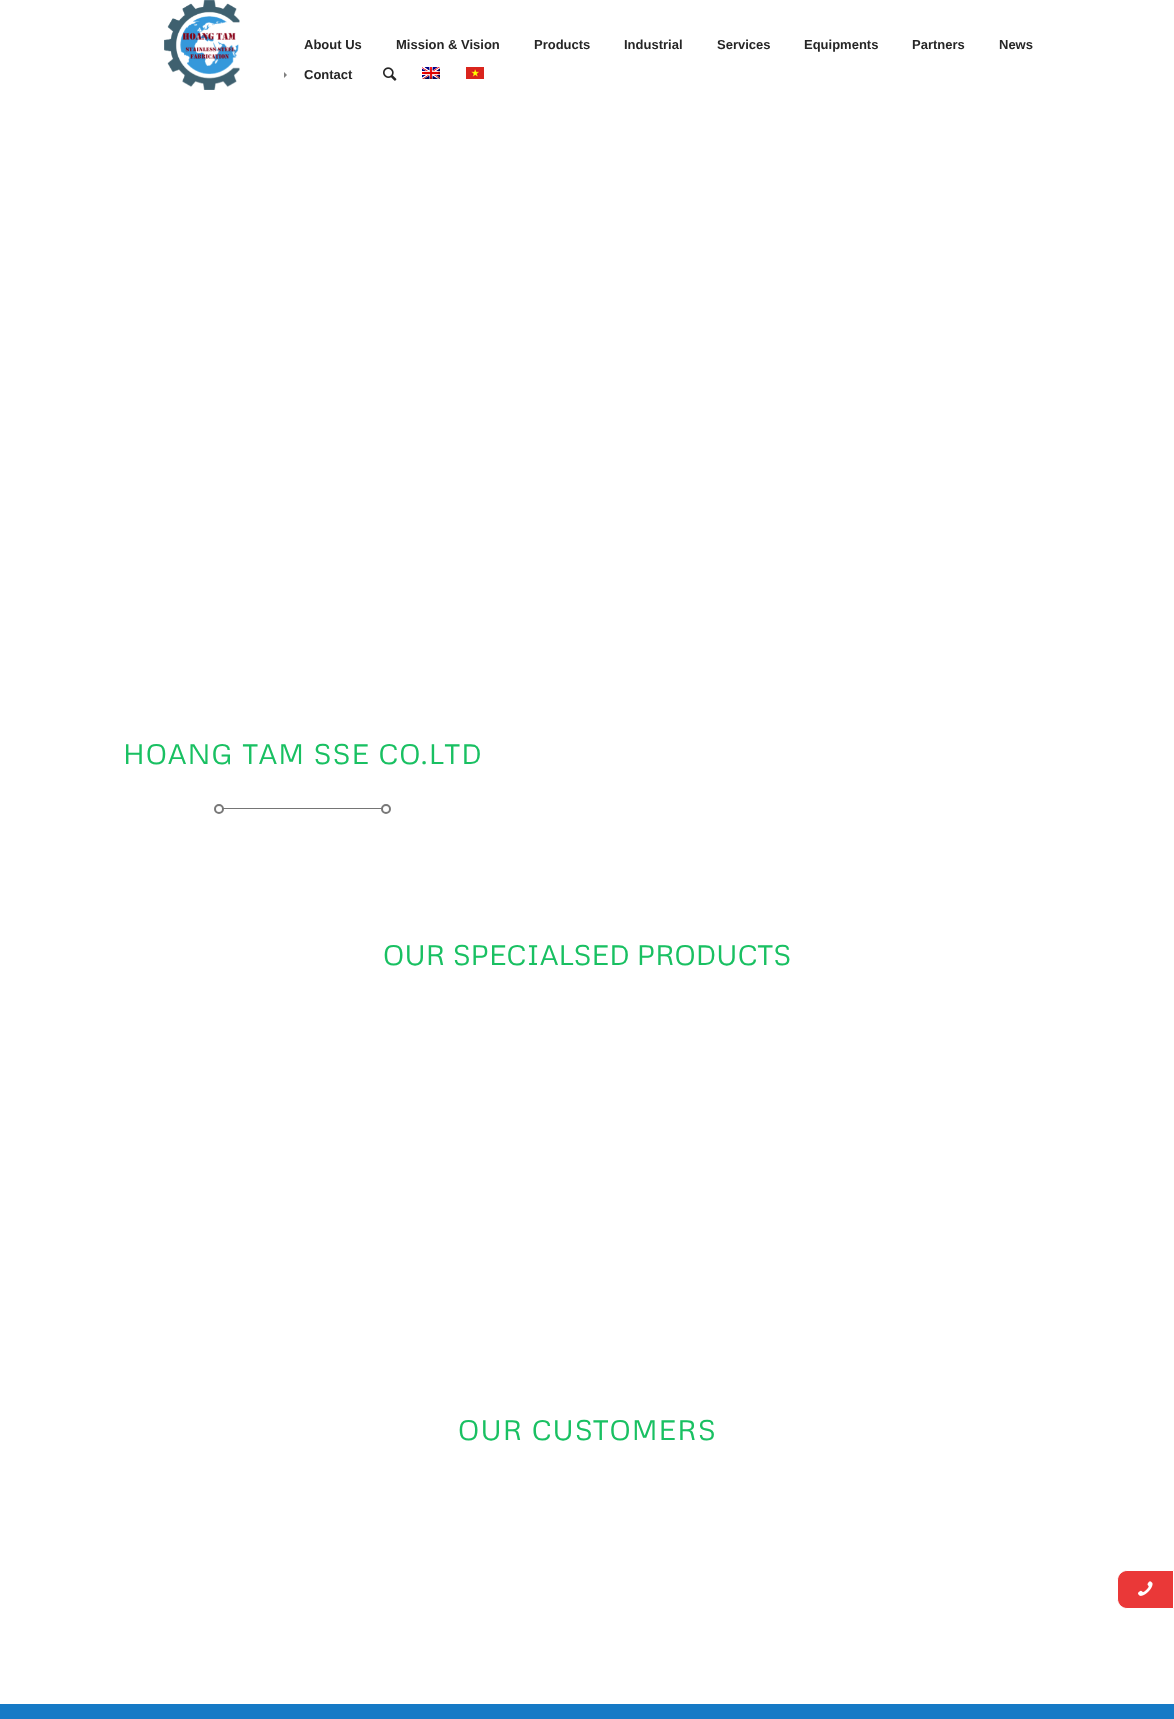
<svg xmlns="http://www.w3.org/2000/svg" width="1174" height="1719">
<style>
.a{font:bold 13px Liberation Sans;fill:#262626}
.b{font:28px Metrophobic;letter-spacing:1px;fill:#19c062}
.c{font:28px Metrophobic;fill:#19c062}
</style>
<rect width="100%" height="100%" fill="#fff"/>
<image href="1.png" x="164" y="0" width="76" height="90"/>
<path fill="#808080" d="M284 78v-6l3 3z"/>
<image href="2.png" x="383" y="67" width="14" height="14"/>
<image href="3.png" x="422" y="67" width="18" height="12"/>
<image href="4.png" x="466" y="67" width="18" height="12"/>
<path fill="#757575" d="M222 808h161v1H222z"/>
<circle fill="none" stroke="#787878" stroke-width="2" cx="219" cy="809" r="4"/>
<circle fill="none" stroke="#787878" stroke-width="2" cx="386" cy="809" r="4"/>
<path fill="#167ac6" d="M0 1704h1174v15H0z"/>
<path fill="#ea3838" stroke="#fff" d="M1127 1570.5h46.5v38h-46.5c-5 0-9.5-4.5-9.5-9.5v-19c0-5 4.5-9.5 9.5-9.5z"/>
<image href="5.png" x="1138" y="1581" width="15" height="15"/>
<text class="a" x="304" y="49">About Us</text>
<text class="a" x="396" y="49">Mission &amp; Vision</text>
<text class="a" x="534" y="49">Products</text>
<text class="a" x="624" y="49">Industrial</text>
<text class="a" x="717" y="49">Services</text>
<text class="a" x="804" y="49">Equipments</text>
<text class="a" x="912" y="49">Partners</text>
<text class="a" x="999" y="49">News</text>
<text class="a" x="304" y="79">Contact</text>
<text class="b" x="123" y="764">HOANG TAM SSE CO.LTD</text>
<text class="c" x="383" y="965">OUR SPECIALSED PRODUCTS</text>
<text class="b" x="458" y="1440">OUR CUSTOMERS</text>
</svg>
